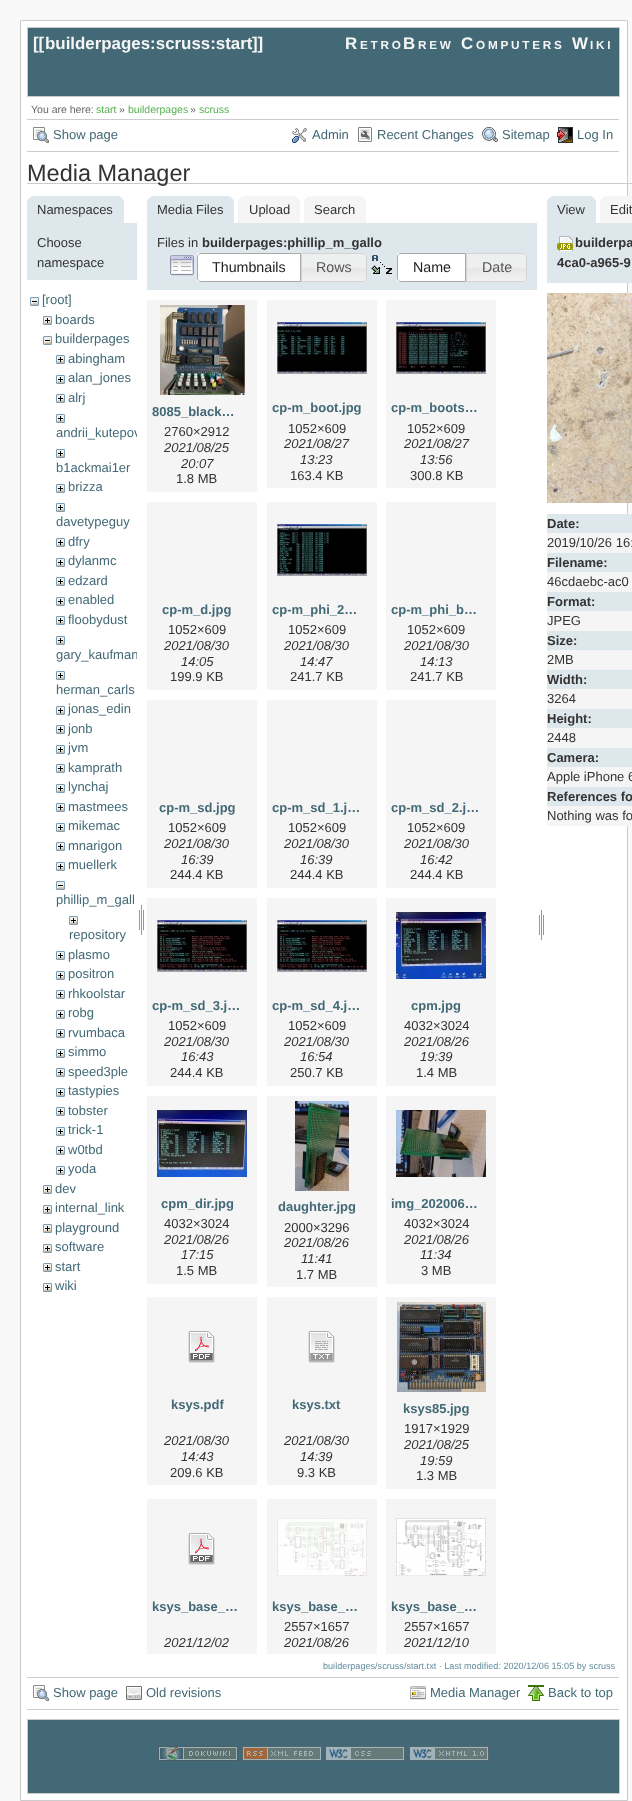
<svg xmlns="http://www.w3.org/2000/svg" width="632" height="1801">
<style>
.a{font:bold 16.9px Liberation Sans;fill:#f5f5f5}
.b{font:bold 16.9px Liberation Sans;letter-spacing:2.75px;fill:#f5f5f5}
.c{font:bold 11.75px Liberation Sans;letter-spacing:2.75px;fill:#f5f5f5}
.d{font:10.5px Liberation Sans;fill:#666}
.e{font:10.5px Liberation Sans;fill:#56b04f}
.f{font:13px Liberation Sans;fill:#436976}
.g{font:23.5px Liberation Sans;fill:#333}
.h{font:13px Liberation Sans;fill:#333}
.i{font:bold 13px Liberation Sans;fill:#333}
.j{font:14.25px Liberation Sans;fill:#212121}
.k{font:14.25px Liberation Sans;fill:#555}
.l{font:bold 13px Liberation Sans;fill:#436976}
.m{font:italic 13px Liberation Sans;fill:#333}
.n{font:9.1px Liberation Sans;fill:#638c9c}
</style>
<defs>
<clipPath id="clip1"><path d="M27 290h110v1354H27z"/></clipPath>
</defs>
<rect width="100%" height="100%" fill="#f8f8f8"/>
<path fill="#fff" stroke="#ccc" d="M20.5 20.5h607v1780H20.5z"/>
<path fill="#436976" stroke="#ccc" d="M27.5 27.5h592v69H27.5z"/>
<path fill="#ccc" d="M27 119h592v1H27z"/>
<path fill="#ccc" d="M27 151h592v1H27z"/>
<image href="1.png" x="33" y="127" width="16" height="16"/>
<image href="2.png" x="292" y="128" width="15" height="15"/>
<image href="3.png" x="358" y="127" width="14" height="15"/>
<image href="4.png" x="482" y="127" width="16" height="15"/>
<image href="5.png" x="557" y="127" width="16" height="16"/>
<path fill="#ccc" d="M27 183h605v1H27z"/>
<path fill="#dee7ec" d="M34 196h83c4 0 7 3 7 7v20h-97v-20c0-4 3-7 7-7z"/>
<path fill="#dee7ec" d="M27 223h110v57H27z"/>
<image href="6.png" x="30" y="297" width="9" height="9"/>
<image href="7.png" x="43" y="316" width="9" height="9"/>
<image href="6.png" x="43" y="336" width="9" height="9"/>
<image href="7.png" x="56" y="355" width="9" height="9"/>
<image href="7.png" x="56" y="375" width="9" height="9"/>
<image href="7.png" x="56" y="394" width="9" height="9"/>
<image href="7.png" x="56" y="414" width="9" height="9"/>
<image href="7.png" x="56" y="449" width="9" height="9"/>
<image href="7.png" x="56" y="484" width="9" height="9"/>
<image href="7.png" x="56" y="503" width="9" height="9"/>
<image href="7.png" x="56" y="538" width="9" height="9"/>
<image href="7.png" x="56" y="558" width="9" height="9"/>
<image href="7.png" x="56" y="577" width="9" height="9"/>
<image href="7.png" x="56" y="597" width="9" height="9"/>
<image href="7.png" x="56" y="616" width="9" height="9"/>
<image href="7.png" x="56" y="636" width="9" height="9"/>
<image href="7.png" x="56" y="671" width="9" height="9"/>
<image href="7.png" x="56" y="706" width="9" height="9"/>
<image href="7.png" x="56" y="725" width="9" height="9"/>
<image href="7.png" x="56" y="745" width="9" height="9"/>
<image href="7.png" x="56" y="764" width="9" height="9"/>
<image href="7.png" x="56" y="784" width="9" height="9"/>
<image href="7.png" x="56" y="803" width="9" height="9"/>
<image href="7.png" x="56" y="823" width="9" height="9"/>
<image href="7.png" x="56" y="842" width="9" height="9"/>
<image href="7.png" x="56" y="862" width="9" height="9"/>
<image href="6.png" x="56" y="881" width="9" height="9"/>
<image href="7.png" x="69" y="916" width="9" height="9"/>
<image href="7.png" x="56" y="951" width="9" height="9"/>
<image href="7.png" x="56" y="971" width="9" height="9"/>
<image href="7.png" x="56" y="990" width="9" height="9"/>
<image href="7.png" x="56" y="1010" width="9" height="9"/>
<image href="7.png" x="56" y="1029" width="9" height="9"/>
<image href="7.png" x="56" y="1049" width="9" height="9"/>
<image href="7.png" x="56" y="1068" width="9" height="9"/>
<image href="7.png" x="56" y="1088" width="9" height="9"/>
<image href="7.png" x="56" y="1107" width="9" height="9"/>
<image href="7.png" x="56" y="1127" width="9" height="9"/>
<image href="7.png" x="56" y="1146" width="9" height="9"/>
<image href="7.png" x="56" y="1166" width="9" height="9"/>
<image href="7.png" x="43" y="1185" width="9" height="9"/>
<image href="7.png" x="43" y="1205" width="9" height="9"/>
<image href="7.png" x="43" y="1224" width="9" height="9"/>
<image href="7.png" x="43" y="1244" width="9" height="9"/>
<image href="7.png" x="43" y="1263" width="9" height="9"/>
<image href="7.png" x="43" y="1283" width="9" height="9"/>
<image href="8.png" x="139" y="904" width="5" height="31"/>
<path fill="#dee7ec" d="M154 196h73c4 0 7 3 7 7v20h-87v-20c0-4 3-7 7-7z"/>
<path fill="#f5f5f5" d="M245 196h48c4 0 7 3 7 7v20h-62v-20c0-4 3-7 7-7z"/>
<path fill="#f5f5f5" d="M311 196h48c4 0 7 3 7 7v20h-62v-20c0-4 3-7 7-7z"/>
<path fill="#dee7ec" d="M147 223h390v67H147z"/>
<image href="9.png" x="170" y="255" width="24" height="21"/>
<path fill="#fff" d="M197 253h103v29H197z"/>
<path fill="none" stroke="#aaa" d="M201 253.5h99.5v28h-99.5c-2 0-3.5-1.5-3.5-3.5v-21c0-2 1.5-3.5 3.5-3.5z"/>
<image href="10.png" x="302" y="253" width="65" height="29"/>
<path fill="none" stroke="#d3d3d3" d="M301.5 253.5h61.5c2 0 3.5 1.5 3.5 3.5v21c0 2-1.5 3.5-3.5 3.5h-61.5z"/>
<image href="11.png" x="371" y="255" width="21" height="19"/>
<path fill="#fff" d="M397 253h68v29H397z"/>
<path fill="none" stroke="#aaa" d="M401 253.5h64.5v28h-64.5c-2 0-3.5-1.5-3.5-3.5v-21c0-2 1.5-3.5 3.5-3.5z"/>
<image href="12.png" x="467" y="253" width="60" height="29"/>
<path fill="none" stroke="#d3d3d3" d="M466.5 253.5h56.5c2 0 3.5 1.5 3.5 3.5v21c0 2-1.5 3.5-3.5 3.5h-56.5z"/>
<path fill="#f5f5f5" d="M147 300h110v192H147z"/>
<image href="13.png" x="160" y="305" width="85" height="90"/>
<path fill="#f5f5f5" d="M267 300h110v188H267z"/>
<image href="14.png" x="277" y="322" width="90" height="52"/>
<path fill="#f5f5f5" d="M386 300h110v188H386z"/>
<image href="15.png" x="396" y="322" width="90" height="52"/>
<path fill="#f5f5f5" d="M147 502h110v188H147z"/>
<path fill="#f5f5f5" d="M267 502h110v188H267z"/>
<image href="16.png" x="277" y="524" width="90" height="52"/>
<path fill="#f5f5f5" d="M386 502h110v188H386z"/>
<path fill="#f5f5f5" d="M147 700h110v188H147z"/>
<path fill="#f5f5f5" d="M267 700h110v188H267z"/>
<path fill="#f5f5f5" d="M386 700h110v188H386z"/>
<path fill="#f5f5f5" d="M147 898h110v188H147z"/>
<image href="17.png" x="157" y="920" width="90" height="52"/>
<path fill="#f5f5f5" d="M267 898h110v188H267z"/>
<image href="18.png" x="277" y="920" width="90" height="52"/>
<path fill="#f5f5f5" d="M386 898h110v188H386z"/>
<image href="19.png" x="396" y="912" width="90" height="67"/>
<path fill="#f5f5f5" d="M147 1096h110v188H147z"/>
<image href="20.png" x="157" y="1110" width="90" height="67"/>
<path fill="#f5f5f5" d="M267 1096h110v191H267z"/>
<image href="21.png" x="295" y="1101" width="54" height="90"/>
<path fill="#f5f5f5" d="M386 1096h110v188H386z"/>
<image href="22.png" x="396" y="1110" width="90" height="67"/>
<path fill="#f5f5f5" d="M147 1297h110v188H147z"/>
<image href="23.png" x="188" y="1331" width="27" height="32"/>
<path fill="#f5f5f5" d="M267 1297h110v188H267z"/>
<image href="24.png" x="308" y="1331" width="27" height="32"/>
<path fill="#f5f5f5" d="M386 1297h110v192H386z"/>
<image href="25.png" x="397" y="1302" width="89" height="90"/>
<path fill="#f5f5f5" d="M147 1499h110v155H147z"/>
<image href="23.png" x="188" y="1533" width="27" height="32"/>
<path fill="#f5f5f5" d="M267 1499h110v155H267z"/>
<image href="26.png" x="277" y="1518" width="90" height="58"/>
<path fill="#f5f5f5" d="M386 1499h110v155H386z"/>
<image href="27.png" x="396" y="1518" width="90" height="58"/>
<image href="8.png" x="539" y="909" width="5" height="31"/>
<path fill="#dee7ec" d="M554 196h35c4 0 7 3 7 7v20h-49v-20c0-4 3-7 7-7z"/>
<path fill="#f5f5f5" d="M607 196h25c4 0 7 3 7 7v20h-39v-20c0-4 3-7 7-7z"/>
<path fill="#dee7ec" d="M547 223h85v60H547z"/>
<image href="28.png" x="557" y="236" width="16" height="15"/>
<image href="29.png" x="547" y="293" width="85" height="210"/>
<path fill="#dee7ec" d="M547 514h85v19H547z"/>
<path fill="#f5f5f5" d="M547 533h85v20H547z"/>
<path fill="#dee7ec" d="M547 553h85v19H547z"/>
<path fill="#f5f5f5" d="M547 572h85v20H547z"/>
<path fill="#dee7ec" d="M547 592h85v19H547z"/>
<path fill="#f5f5f5" d="M547 611h85v20H547z"/>
<path fill="#dee7ec" d="M547 631h85v19H547z"/>
<path fill="#f5f5f5" d="M547 650h85v20H547z"/>
<path fill="#dee7ec" d="M547 670h85v19H547z"/>
<path fill="#f5f5f5" d="M547 689h85v20H547z"/>
<path fill="#dee7ec" d="M547 709h85v19H547z"/>
<path fill="#f5f5f5" d="M547 728h85v20H547z"/>
<path fill="#dee7ec" d="M547 748h85v19H547z"/>
<path fill="#f5f5f5" d="M547 767h85v20H547z"/>
<path fill="#dee7ec" d="M547 787h85v19H547z"/>
<path fill="#f5f5f5" d="M547 806h85v20H547z"/>
<path fill="#ccc" d="M27 1677h592v1H27z"/>
<path fill="#ccc" d="M27 1709h592v1H27z"/>
<image href="1.png" x="33" y="1685" width="16" height="16"/>
<image href="30.png" x="126" y="1686" width="16" height="14"/>
<image href="31.png" x="410" y="1686" width="16" height="14"/>
<image href="32.png" x="528" y="1685" width="16" height="16"/>
<path fill="#436976" stroke="#ccc" d="M27.5 1719.5h592v74H27.5z"/>
<image href="33.png" x="158" y="1746" width="80" height="15"/>
<image href="34.png" x="242" y="1746" width="80" height="15"/>
<image href="35.png" x="325" y="1746" width="80" height="15"/>
<image href="36.png" x="409" y="1746" width="80" height="15"/>
<text class="a" x="33" y="49">[[</text>
<text class="a" x="45" y="49">builderpages:scruss:start</text>
<text class="a" x="252" y="49">]]</text>
<text class="b" x="345" y="49">R</text>
<text class="c" x="360" y="49">ETRO</text>
<text class="b" x="403" y="49">B</text>
<text class="c" x="418" y="49">REW</text>
<text class="b" x="461" y="49">C</text>
<text class="c" x="476" y="49">OMPUTERS</text>
<text class="b" x="572" y="49">W</text>
<text class="c" x="590" y="49">IKI</text>
<text class="d" x="31" y="113">You are here:</text>
<text class="e" x="96" y="113">start</text>
<text class="d" x="119" y="113">»</text>
<text class="e" x="128" y="113">builderpages</text>
<text class="d" x="190" y="113">»</text>
<text class="e" x="199" y="113">scruss</text>
<text class="f" x="53" y="139">Show page</text>
<text class="f" x="312" y="139">Admin</text>
<text class="f" x="377" y="139">Recent Changes</text>
<text class="f" x="502" y="139">Sitemap</text>
<text class="f" x="577" y="139">Log In</text>
<text class="g" x="27" y="181">Media Manager</text>
<text class="h" x="37" y="214">Namespaces</text>
<text class="h" x="37" y="247">Choose</text>
<text class="h" x="37" y="267">namespace</text>
<text class="f" x="42" y="304">[root]</text>
<text class="f" x="55" y="324">boards</text>
<text class="f" x="55" y="343">builderpages</text>
<text class="f" x="68" y="363">abingham</text>
<text class="f" x="68" y="382">alan_jones</text>
<text class="f" x="68" y="402">alrj</text>
<g clip-path="url(#clip1)">
<text class="f" x="56" y="437">andrii_kutepov</text>
</g>
<text class="f" x="56" y="472">b1ackmai1er</text>
<text class="f" x="68" y="491">brizza</text>
<text class="f" x="56" y="526">davetypeguy</text>
<text class="f" x="68" y="546">dfry</text>
<text class="f" x="68" y="565">dylanmc</text>
<text class="f" x="68" y="585">edzard</text>
<text class="f" x="68" y="604">enabled</text>
<text class="f" x="68" y="624">floobydust</text>
<g clip-path="url(#clip1)">
<text class="f" x="56" y="659">gary_kaufman</text>
</g>
<text class="f" x="56" y="694">herman_carls</text>
<text class="f" x="68" y="713">jonas_edin</text>
<text class="f" x="68" y="733">jonb</text>
<text class="f" x="68" y="752">jvm</text>
<text class="f" x="68" y="772">kamprath</text>
<text class="f" x="68" y="791">lynchaj</text>
<text class="f" x="68" y="811">mastmees</text>
<text class="f" x="68" y="830">mikemac</text>
<text class="f" x="68" y="850">mnarigon</text>
<text class="f" x="68" y="869">muellerk</text>
<text class="f" x="56" y="904">phillip_m_gall</text>
<text class="f" x="69" y="939">repository</text>
<text class="f" x="68" y="959">plasmo</text>
<text class="f" x="68" y="978">positron</text>
<text class="f" x="68" y="998">rhkoolstar</text>
<text class="f" x="68" y="1017">robg</text>
<text class="f" x="68" y="1037">rvumbaca</text>
<text class="f" x="68" y="1056">simmo</text>
<text class="f" x="68" y="1076">speed3ple</text>
<text class="f" x="68" y="1095">tastypies</text>
<text class="f" x="68" y="1115">tobster</text>
<text class="f" x="68" y="1134">trick-1</text>
<text class="f" x="68" y="1154">w0tbd</text>
<text class="f" x="68" y="1173">yoda</text>
<text class="f" x="55" y="1193">dev</text>
<text class="f" x="55" y="1212">internal_link</text>
<text class="f" x="55" y="1232">playground</text>
<text class="f" x="55" y="1251">software</text>
<text class="f" x="55" y="1271">start</text>
<text class="f" x="55" y="1290">wiki</text>
<text class="h" x="157" y="214">Media Files</text>
<text class="h" x="249" y="214">Upload</text>
<text class="h" x="314" y="214">Search</text>
<text class="h" x="157" y="247">Files in</text>
<text class="i" x="202" y="247">builderpages:phillip_m_gallo</text>
<text class="j" x="212" y="272">Thumbnails</text>
<text class="k" x="316" y="272">Rows</text>
<text class="j" x="413" y="272">Name</text>
<text class="k" x="482" y="272">Date</text>
<text class="l" x="152" y="416">8085_black…</text>
<text class="h" x="164" y="436">2760×2912</text>
<text class="m" x="164" y="452">2021/08/25</text>
<text class="m" x="181" y="468">20:07</text>
<text class="h" x="176" y="483">1.8 MB</text>
<text class="l" x="272" y="412">cp-m_boot.jpg</text>
<text class="h" x="288" y="433">1052×609</text>
<text class="m" x="284" y="448">2021/08/27</text>
<text class="m" x="300" y="464">13:23</text>
<text class="h" x="290" y="480">163.4 KB</text>
<text class="l" x="391" y="412">cp-m_boots…</text>
<text class="h" x="407" y="433">1052×609</text>
<text class="m" x="404" y="448">2021/08/27</text>
<text class="m" x="420" y="464">13:56</text>
<text class="h" x="410" y="480">300.8 KB</text>
<text class="l" x="162" y="614">cp-m_d.jpg</text>
<text class="h" x="168" y="634">1052×609</text>
<text class="m" x="164" y="650">2021/08/30</text>
<text class="m" x="181" y="666">14:05</text>
<text class="h" x="170" y="681">199.9 KB</text>
<text class="l" x="272" y="614">cp-m_phi_2…</text>
<text class="h" x="288" y="634">1052×609</text>
<text class="m" x="284" y="650">2021/08/30</text>
<text class="m" x="300" y="666">14:47</text>
<text class="h" x="290" y="681">241.7 KB</text>
<text class="l" x="391" y="614">cp-m_phi_b…</text>
<text class="h" x="407" y="634">1052×609</text>
<text class="m" x="404" y="650">2021/08/30</text>
<text class="m" x="420" y="666">14:13</text>
<text class="h" x="410" y="681">241.7 KB</text>
<text class="l" x="159" y="812">cp-m_sd.jpg</text>
<text class="h" x="168" y="832">1052×609</text>
<text class="m" x="164" y="848">2021/08/30</text>
<text class="m" x="181" y="864">16:39</text>
<text class="h" x="170" y="879">244.4 KB</text>
<text class="l" x="272" y="812">cp-m_sd_1.j…</text>
<text class="h" x="288" y="832">1052×609</text>
<text class="m" x="284" y="848">2021/08/30</text>
<text class="m" x="300" y="864">16:39</text>
<text class="h" x="290" y="879">244.4 KB</text>
<text class="l" x="391" y="812">cp-m_sd_2.j…</text>
<text class="h" x="407" y="832">1052×609</text>
<text class="m" x="404" y="848">2021/08/30</text>
<text class="m" x="420" y="864">16:42</text>
<text class="h" x="410" y="879">244.4 KB</text>
<text class="l" x="152" y="1010">cp-m_sd_3.j…</text>
<text class="h" x="168" y="1030">1052×609</text>
<text class="m" x="164" y="1046">2021/08/30</text>
<text class="m" x="181" y="1061">16:43</text>
<text class="h" x="170" y="1077">244.4 KB</text>
<text class="l" x="272" y="1010">cp-m_sd_4.j…</text>
<text class="h" x="288" y="1030">1052×609</text>
<text class="m" x="284" y="1046">2021/08/30</text>
<text class="m" x="300" y="1061">16:54</text>
<text class="h" x="290" y="1077">250.7 KB</text>
<text class="l" x="411" y="1010">cpm.jpg</text>
<text class="h" x="404" y="1030">4032×3024</text>
<text class="m" x="404" y="1046">2021/08/26</text>
<text class="m" x="420" y="1061">19:39</text>
<text class="h" x="416" y="1077">1.4 MB</text>
<text class="l" x="161" y="1208">cpm_dir.jpg</text>
<text class="h" x="164" y="1228">4032×3024</text>
<text class="m" x="164" y="1244">2021/08/26</text>
<text class="m" x="181" y="1259">17:15</text>
<text class="h" x="176" y="1275">1.5 MB</text>
<text class="l" x="278" y="1211">daughter.jpg</text>
<text class="h" x="284" y="1232">2000×3296</text>
<text class="m" x="284" y="1247">2021/08/26</text>
<text class="m" x="301" y="1263">11:41</text>
<text class="h" x="296" y="1279">1.7 MB</text>
<text class="l" x="391" y="1208">img_202006…</text>
<text class="h" x="404" y="1228">4032×3024</text>
<text class="m" x="404" y="1244">2021/08/26</text>
<text class="m" x="420" y="1259">11:34</text>
<text class="h" x="421" y="1275">3 MB</text>
<text class="l" x="171" y="1409">ksys.pdf</text>
<text class="m" x="164" y="1445">2021/08/30</text>
<text class="m" x="181" y="1461">14:43</text>
<text class="h" x="170" y="1477">209.6 KB</text>
<text class="l" x="292" y="1409">ksys.txt</text>
<text class="m" x="284" y="1445">2021/08/30</text>
<text class="m" x="300" y="1461">14:39</text>
<text class="h" x="297" y="1477">9.3 KB</text>
<text class="l" x="403" y="1413">ksys85.jpg</text>
<text class="h" x="404" y="1433">1917×1929</text>
<text class="m" x="404" y="1449">2021/08/25</text>
<text class="m" x="420" y="1465">19:59</text>
<text class="h" x="416" y="1480">1.3 MB</text>
<text class="l" x="152" y="1611">ksys_base_…</text>
<text class="m" x="164" y="1647">2021/12/02</text>
<text class="l" x="272" y="1611">ksys_base_…</text>
<text class="h" x="284" y="1631">2557×1657</text>
<text class="m" x="284" y="1647">2021/08/26</text>
<text class="l" x="391" y="1611">ksys_base_…</text>
<text class="h" x="404" y="1631">2557×1657</text>
<text class="m" x="404" y="1647">2021/12/10</text>
<text class="h" x="557" y="214">View</text>
<text class="h" x="610" y="214">Edit</text>
<text class="i" x="575" y="247">builderpa</text>
<text class="i" x="557" y="267">4ca0-a965-9</text>
<text class="i" x="547" y="528">Date:</text>
<text class="h" x="547" y="547">2019/10/26 16:</text>
<text class="i" x="547" y="567">Filename:</text>
<text class="h" x="547" y="586">46cdaebc-ac0</text>
<text class="i" x="547" y="606">Format:</text>
<text class="h" x="547" y="625">JPEG</text>
<text class="i" x="547" y="645">Size:</text>
<text class="h" x="547" y="664">2MB</text>
<text class="i" x="547" y="684">Width:</text>
<text class="h" x="547" y="703">3264</text>
<text class="i" x="547" y="723">Height:</text>
<text class="h" x="547" y="742">2448</text>
<text class="i" x="547" y="762">Camera:</text>
<text class="h" x="547" y="781">Apple iPhone 6</text>
<text class="i" x="547" y="801">References fo</text>
<text class="h" x="547" y="820">Nothing was fo</text>
<text class="n" x="323" y="1669">builderpages/scruss/start.txt · Last modified: 2020/12/06 15:05 by scruss</text>
<text class="f" x="53" y="1697">Show page</text>
<text class="f" x="146" y="1697">Old revisions</text>
<text class="f" x="430" y="1697">Media Manager</text>
<text class="f" x="548" y="1697">Back to top</text>
</svg>
